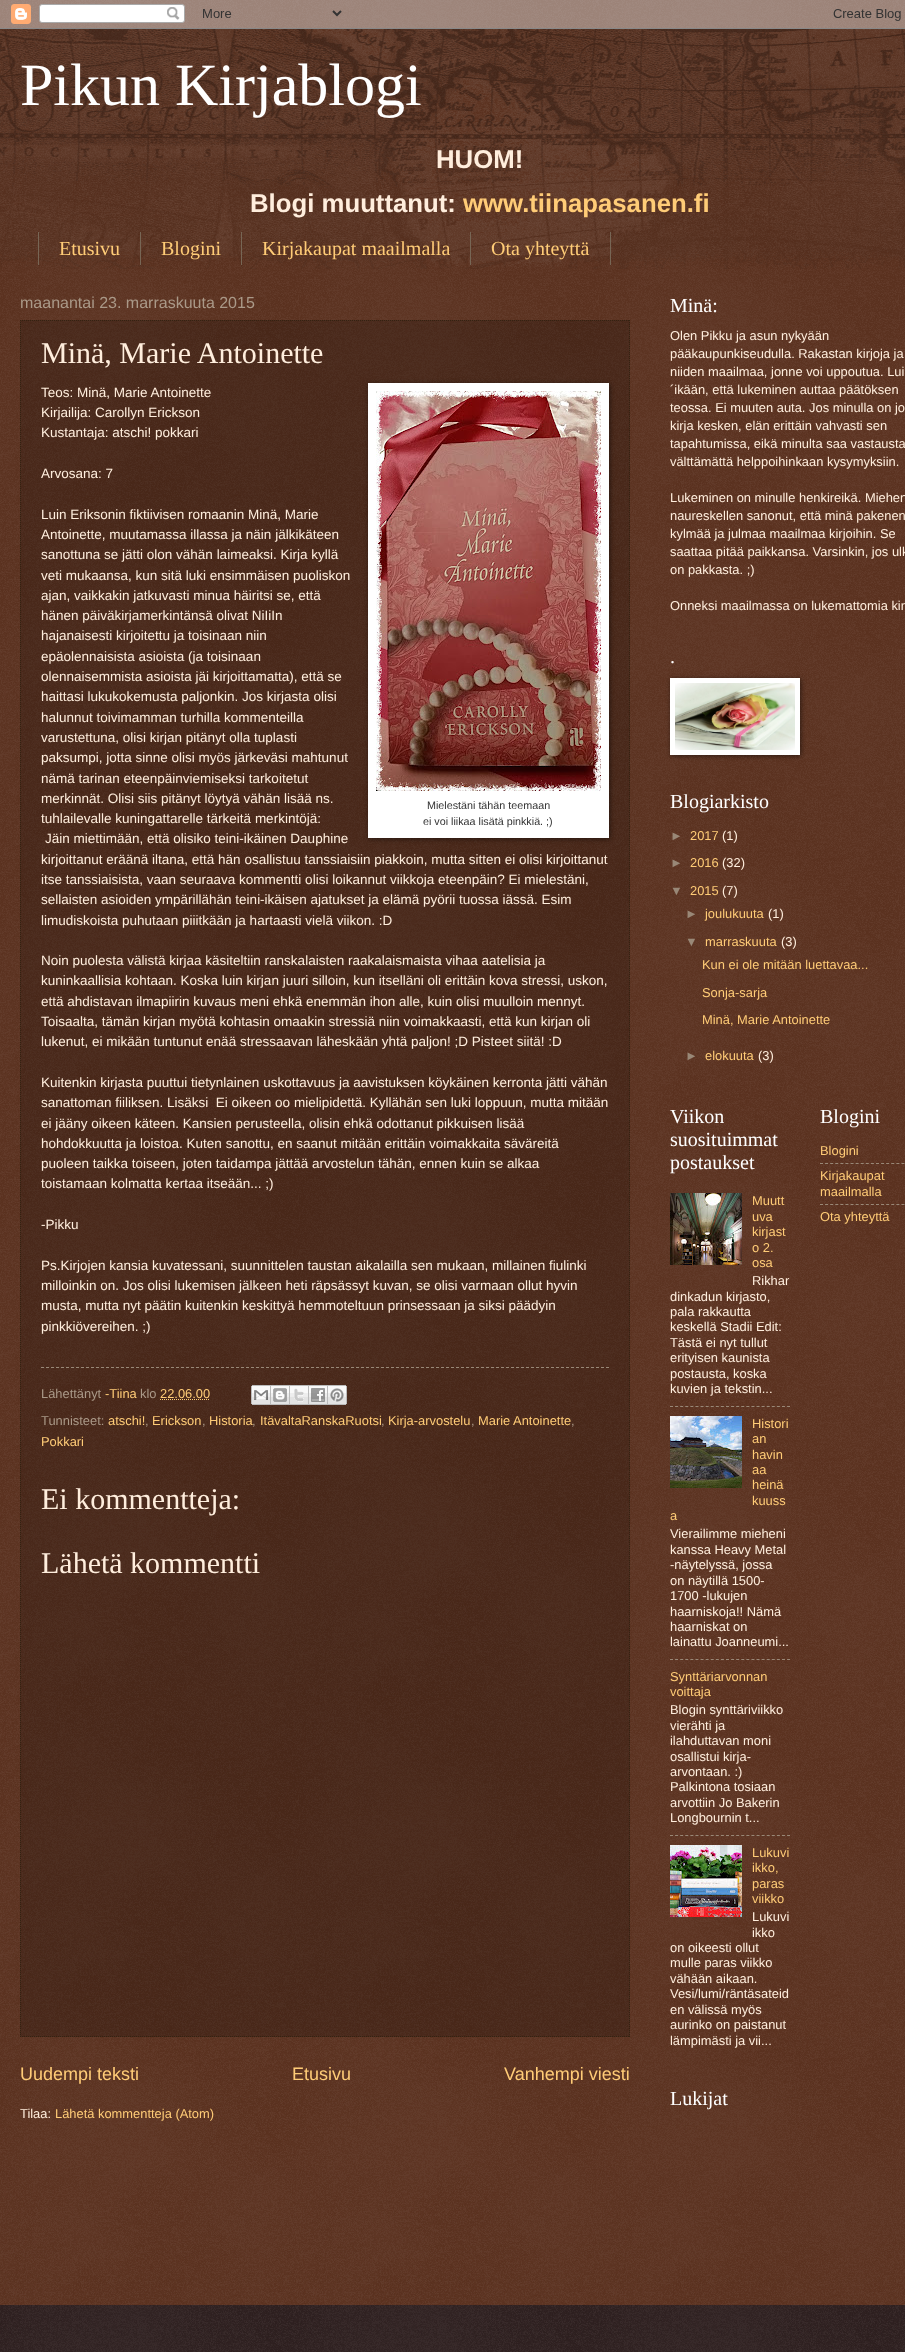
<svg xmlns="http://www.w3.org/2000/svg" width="905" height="2352">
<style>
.a{font:60px Liberation Serif;fill:#fff}
.b{font:bold 25.75px Liberation Sans;fill:#fed}
.c{font:bold 25.75px Liberation Sans;fill:#fc7}
.d{font:20px Liberation Serif;fill:#fc7}
.e{font:16px Liberation Sans;fill:#a98}
.f{font:30px Liberation Serif;fill:#fed}
.g{font:13.5px Liberation Sans;fill:#fed}
.h{font:10.75px Liberation Sans;fill:#333}
.i{font:12.9px Liberation Sans;fill:#a98}
.j{font:12.9px Liberation Sans;fill:#fc7}
.k{font:18px Liberation Sans;fill:#fc7}
.l{font:12.9px Liberation Sans;fill:#fed}
.m{font:20px Liberation Serif;fill:#fff}
.n{font:12.9px Liberation Sans;fill:#987}
</style>
<rect width="100%" height="100%" fill="#441500"/>
<image href="1.png" x="0" y="0" width="905" height="2305"/>
<image href="2.png" x="0" y="0" width="905" height="29"/>
<image href="3.png" x="0" y="29" width="905" height="240"/>
<path fill="#765" d="M140 232h1v33H140z"/>
<path fill="#765" d="M38 232h1v33H38z"/>
<path fill="#765" d="M241 232h1v33H241z"/>
<path fill="#765" d="M470 232h1v33H470z"/>
<path fill="#765" d="M610 232h1v33H610z"/>
<path fill="#00000033" d="M20 320h610v1717H20z"/>
<path fill="none" stroke="#321" stroke-dasharray="1 1" d="M20 320.5h610"/>
<path fill="none" stroke="#321" stroke-dasharray="1 1" d="M629.5 320v1717"/>
<path fill="none" stroke="#321" stroke-dasharray="1 1" d="M20 2036.5h610"/>
<path fill="none" stroke="#321" stroke-dasharray="1 1" d="M20.5 320v1717"/>
<path fill="#00000080" filter="blur(2.5px)" d="M369 384h241v455H369z"/>
<path fill="#fff" d="M368 383h241v455H368z"/>
<image href="4.png" x="376" y="391" width="225" height="400"/>
<path fill="none" stroke="#987" stroke-dasharray="3 2" d="M41 1367.5h568"/>
<path fill="none" stroke="#fc7" stroke-dasharray="1 1" d="M160 1399.5h50"/>
<image href="5.png" x="251" y="1385" width="20" height="20"/>
<image href="6.png" x="271" y="1385" width="19" height="20"/>
<image href="7.png" x="290" y="1385" width="19" height="20"/>
<image href="8.png" x="309" y="1385" width="19" height="20"/>
<image href="9.png" x="328" y="1385" width="19" height="20"/>
<path fill="#00000080" filter="blur(2.5px)" d="M671 679h130v77H671z"/>
<path fill="#fff" d="M670 678h130v77H670z"/>
<image href="10.png" x="675" y="683" width="120" height="67"/>
<image href="11.png" x="670" y="1193" width="72" height="72"/>
<path fill="none" stroke="#987" stroke-dasharray="3 2.09" d="M670 1406.5h120"/>
<image href="12.png" x="670" y="1416" width="72" height="72"/>
<path fill="none" stroke="#987" stroke-dasharray="3 2.09" d="M670 1659.5h120"/>
<path fill="none" stroke="#987" stroke-dasharray="3 2.09" d="M670 1835.5h120"/>
<image href="13.png" x="670" y="1845" width="72" height="72"/>
<path fill="none" stroke="#987" stroke-dasharray="3 2.09" d="M820 1163.5h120"/>
<path fill="none" stroke="#987" stroke-dasharray="3 2.09" d="M820 1204.5h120"/>
<path fill="#100" d="M0 2305h905v47H0z"/>
<image href="14.png" x="0" y="2305" width="905" height="47"/>
<text class="a" x="20" y="105">Pikun Kirjablogi</text>
<text class="b" x="436" y="168">HUOM!</text>
<text class="b" x="250" y="212">Blogi muuttanut:</text>
<text class="c" x="463" y="212">www.tiinapasanen.fi</text>
<text class="d" x="59" y="255">Etusivu</text>
<text class="d" x="161" y="255">Blogini</text>
<text class="d" x="262" y="255">Kirjakaupat maailmalla</text>
<text class="d" x="491" y="255">Ota yhteyttä</text>
<text class="e" x="20" y="308">maanantai 23. marraskuuta 2015</text>
<text class="f" x="41" y="363">Minä, Marie Antoinette</text>
<text class="g" x="41" y="397">Teos: Minä, Marie Antoinette</text>
<text class="g" x="41" y="417">Kirjailija: Carollyn Erickson</text>
<text class="g" x="41" y="437">Kustantaja: atschi! pokkari</text>
<text class="g" x="41" y="478">Arvosana: 7</text>
<text class="g" x="41" y="519">Luin Eriksonin fiktiivisen romaanin Minä, Marie</text>
<text class="g" x="41" y="539">Antoinette, muutamassa illassa ja näin jälkikäteen</text>
<text class="g" x="41" y="559">sanottuna se jätti olon vähän laimeaksi. Kirja kyllä</text>
<text class="g" x="41" y="580">veti mukaansa, kun sitä luki ensimmäisen puoliskon</text>
<text class="g" x="41" y="600">ajan, vaikkakin jatkuvasti minua häiritsi se, että</text>
<text class="g" x="41" y="620">hänen päiväkirjamerkintänsä olivat NiIiIn</text>
<text class="g" x="41" y="640">hajanaisesti kirjoitettu ja toisinaan niin</text>
<text class="g" x="41" y="661">epäolennaisista asioista (ja toisinaan</text>
<text class="g" x="41" y="681">olennaisemmista asioista jäi kirjoittamatta), että se</text>
<text class="g" x="41" y="701">haittasi lukukokemusta paljonkin. Jos kirjasta olisi</text>
<text class="g" x="41" y="722">halunnut toivimamman turhilla kommenteilla</text>
<text class="g" x="41" y="742">varustettuna, olisi kirjan pitänyt olla tuplasti</text>
<text class="g" x="41" y="762">paksumpi, jotta sinne olisi myös järkeväsi mahtunut</text>
<text class="g" x="41" y="783">nämä tarinan eteenpäinviemiseksi tarkoitetut</text>
<text class="g" x="41" y="803">merkinnät. Olisi siis pitänyt löytyä vähän lisää ns.</text>
<text class="g" x="41" y="823">tuhlailevalle kuningattarelle tärkeitä merkintöjä:</text>
<text class="h" x="427" y="809">Mielestäni tähän teemaan</text>
<text class="h" x="423" y="825">ei voi liikaa lisätä pinkkiä. ;)</text>
<text class="g" x="45" y="843">Jäin miettimään, että olisiko teini-ikäinen Dauphine</text>
<text class="g" x="41" y="864">kirjoittanut eräänä iltana, että hän osallistuu tanssiaisiin piakkoin, mutta sitten ei olisi kirjoittanut</text>
<text class="g" x="41" y="884">itse tanssiaisista, vaan seuraava kommentti olisi loikannut viikkoja eteenpäin? Ei mielestäni,</text>
<text class="g" x="41" y="904">sellaisten asioiden ympärillähän teini-ikäisen ajatukset ja elämä pyörii tuossa iässä. Esim</text>
<text class="g" x="41" y="925">limudiskoista puhutaan piiitkään ja hartaasti vielä viikon. :D</text>
<text class="g" x="41" y="965">Noin puolesta välistä kirjaa käsiteltiin ranskalaisten raakalaismaista vihaa aatelisia ja</text>
<text class="g" x="41" y="985">kuninkaallisia kohtaan. Koska luin kirjan juuri silloin, kun itselläni oli erittäin kova stressi, uskon,</text>
<text class="g" x="41" y="1006">että ahdistavan ilmapiirin kuvaus meni ehkä enemmän ihon alle, kuin olisi muulloin mennyt.</text>
<text class="g" x="41" y="1026">Toisaalta, tämän kirjan myötä kohtasin omaakin stressiä niin voimakkaasti, että kun kirjan oli</text>
<text class="g" x="41" y="1046">lukenut, ei mikään tuntunut enää stressaavan läheskään yhtä paljon! ;D Pisteet siitä! :D</text>
<text class="g" x="41" y="1087">Kuitenkin kirjasta puuttui tietynlainen uskottavuus ja aavistuksen köykäinen kerronta jätti vähän</text>
<text class="g" xml:space="preserve" x="41" y="1107">sanattoman fiiliksen. Lisäksi  Ei oikeen oo mielipidettä. Kyllähän sen luki loppuun, mutta mitään</text>
<text class="g" x="41" y="1128">ei jääny oikeen käteen. Kansien perusteella, olisin ehkä odottanut pikkuisen lisää</text>
<text class="g" x="41" y="1148">hohdokkuutta ja loistoa. Kuten sanottu, en saanut mitään erittäin voimakkaita säväreitä</text>
<text class="g" x="41" y="1168">puoleen taikka toiseen, joten taidampa jättää arvostelun tähän, ennen kuin se alkaa</text>
<text class="g" x="41" y="1188">toistamaan kolmatta kertaa itseään... ;)</text>
<text class="g" x="41" y="1229">-Pikku</text>
<text class="g" x="41" y="1270">Ps.Kirjojen kansia kuvatessani, suunnittelen taustan aikalailla sen mukaan, millainen fiulinki</text>
<text class="g" x="41" y="1290">milloinkin on. Jos olisi lukemisen jälkeen heti räpsässyt kuvan, se olisi varmaan ollut hyvin</text>
<text class="g" x="41" y="1310">musta, mutta nyt päätin kuitenkin keskittyä hemmoteltuun prinsessaan ja siksi päädyin</text>
<text class="g" x="41" y="1331">pinkkiövereihen. ;)</text>
<text class="i" x="41" y="1398">Lähettänyt</text>
<text class="j" x="105" y="1398">-Tiina</text>
<text class="i" x="140" y="1398">klo</text>
<text class="j" x="160" y="1398">22.06.00</text>
<text class="i" x="41" y="1425">Tunnisteet:</text>
<text class="j" x="108" y="1425">atschi!</text>
<text class="i" x="145" y="1425">,</text>
<text class="j" x="152" y="1425">Erickson</text>
<text class="i" x="202" y="1425">,</text>
<text class="j" x="209" y="1425">Historia</text>
<text class="i" x="252" y="1425">,</text>
<text class="j" x="260" y="1425">ItävaltaRanskaRuotsi</text>
<text class="i" x="381" y="1425">,</text>
<text class="j" x="388" y="1425">Kirja-arvostelu</text>
<text class="i" x="471" y="1425">,</text>
<text class="j" x="478" y="1425">Marie Antoinette</text>
<text class="i" x="571" y="1425">,</text>
<text class="j" x="41" y="1446">Pokkari</text>
<text class="f" x="41" y="1509">Ei kommentteja:</text>
<text class="f" x="41" y="1573">Lähetä kommentti</text>
<text class="k" x="20" y="2080">Uudempi teksti</text>
<text class="k" x="292" y="2080">Etusivu</text>
<text class="k" x="504" y="2080">Vanhempi viesti</text>
<text class="l" x="20" y="2118">Tilaa:</text>
<text class="j" x="55" y="2118">Lähetä kommentteja (Atom)</text>
<text class="m" x="670" y="312">Minä:</text>
<text class="l" x="670" y="340">Olen Pikku ja asun nykyään</text>
<text class="l" x="670" y="358">pääkaupunkiseudulla. Rakastan kirjoja ja</text>
<text class="l" x="670" y="376">niiden maailmaa, jonne voi uppoutua. Lui</text>
<text class="l" x="670" y="394">´ikään, että lukeminen auttaa päätöksen</text>
<text class="l" x="670" y="412">teossa. Ei muuten auta. Jos minulla on jo</text>
<text class="l" x="670" y="430">kirja kesken, elän erittäin vahvasti sen</text>
<text class="l" x="670" y="448">tapahtumissa, eikä minulta saa vastausta</text>
<text class="l" x="670" y="466">välttämättä helppoihinkaan kysymyksiin.</text>
<text class="l" x="670" y="502">Lukeminen on minulle henkireikä. Miehen</text>
<text class="l" x="670" y="520">naureskellen sanonut, että minä pakenen</text>
<text class="l" x="670" y="538">kylmää ja julmaa maailmaa kirjoihin. Se</text>
<text class="l" x="670" y="556">saattaa pitää paikkansa. Varsinkin, jos ulk</text>
<text class="l" x="670" y="574">on pakkasta. ;)</text>
<text class="l" x="670" y="610">Onneksi maailmassa on lukemattomia kir</text>
<text class="m" x="670" y="663">.</text>
<text class="m" x="670" y="808">Blogiarkisto</text>
<text class="n" x="670" y="840">►</text>
<text class="j" x="690" y="840">2017</text>
<text class="l" x="722" y="840">(1)</text>
<text class="n" x="670" y="867">►</text>
<text class="j" x="690" y="867">2016</text>
<text class="l" x="722" y="867">(32)</text>
<text class="n" x="670" y="895">▼</text>
<text class="j" x="690" y="895">2015</text>
<text class="l" x="722" y="895">(7)</text>
<text class="n" x="685" y="918">►</text>
<text class="j" x="705" y="918">joulukuuta</text>
<text class="l" x="768" y="918">(1)</text>
<text class="n" x="685" y="946">▼</text>
<text class="j" x="705" y="946">marraskuuta</text>
<text class="l" x="781" y="946">(3)</text>
<text class="j" x="702" y="969">Kun ei ole mitään luettavaa...</text>
<text class="j" x="702" y="997">Sonja-sarja</text>
<text class="j" x="702" y="1024">Minä, Marie Antoinette</text>
<text class="n" x="685" y="1060">►</text>
<text class="j" x="705" y="1060">elokuuta</text>
<text class="l" x="758" y="1060">(3)</text>
<text class="m" x="670" y="1123">Viikon</text>
<text class="m" x="670" y="1146">suosituimmat</text>
<text class="m" x="670" y="1169">postaukset</text>
<text class="j" x="752" y="1205">Muutt</text>
<text class="j" x="752" y="1221">uva</text>
<text class="j" x="752" y="1236">kirjast</text>
<text class="j" x="752" y="1252">o 2.</text>
<text class="j" x="752" y="1267">osa</text>
<text class="l" x="752" y="1285">Rikhar</text>
<text class="l" x="670" y="1301">dinkadun kirjasto,</text>
<text class="l" x="670" y="1316">pala rakkautta</text>
<text class="l" x="670" y="1331">keskellä Stadii Edit:</text>
<text class="l" x="670" y="1347">Tästä ei nyt tullut</text>
<text class="l" x="670" y="1362">erityisen kaunista</text>
<text class="l" x="670" y="1378">postausta, koska</text>
<text class="l" x="670" y="1393">kuvien ja tekstin...</text>
<text class="j" x="752" y="1428">Histori</text>
<text class="j" x="752" y="1443">an</text>
<text class="j" x="752" y="1459">havin</text>
<text class="j" x="752" y="1474">aa</text>
<text class="j" x="752" y="1489">heinä</text>
<text class="j" x="752" y="1505">kuuss</text>
<text class="j" x="670" y="1520">a</text>
<text class="l" x="670" y="1538">Vierailimme mieheni</text>
<text class="l" x="670" y="1554">kanssa Heavy Metal</text>
<text class="l" x="670" y="1569">-näytelyssä, jossa</text>
<text class="l" x="670" y="1585">on näytillä 1500-</text>
<text class="l" x="670" y="1600">1700 -lukujen</text>
<text class="l" x="670" y="1616">haarniskoja!! Nämä</text>
<text class="l" x="670" y="1631">haarniskat on</text>
<text class="l" x="670" y="1646">lainattu Joanneumi...</text>
<text class="j" x="670" y="1681">Synttäriarvonnan</text>
<text class="j" x="670" y="1696">voittaja</text>
<text class="l" x="670" y="1714">Blogin synttäriviikko</text>
<text class="l" x="670" y="1730">vierähti ja</text>
<text class="l" x="670" y="1745">ilahduttavan moni</text>
<text class="l" x="670" y="1761">osallistui kirja-</text>
<text class="l" x="670" y="1776">arvontaan. :)</text>
<text class="l" x="670" y="1791">Palkintona tosiaan</text>
<text class="l" x="670" y="1807">arvottiin Jo Bakerin</text>
<text class="l" x="670" y="1822">Longbournin t...</text>
<text class="j" x="752" y="1857">Lukuvi</text>
<text class="j" x="752" y="1872">ikko,</text>
<text class="j" x="752" y="1888">paras</text>
<text class="j" x="752" y="1903">viikko</text>
<text class="l" x="752" y="1921">Lukuvi</text>
<text class="l" x="752" y="1937">ikko</text>
<text class="l" x="670" y="1952">on oikeesti ollut</text>
<text class="l" x="670" y="1967">mulle paras viikko</text>
<text class="l" x="670" y="1983">vähään aikaan.</text>
<text class="l" x="670" y="1998">Vesi/lumi/räntäsateid</text>
<text class="l" x="670" y="2014">en välissä myös</text>
<text class="l" x="670" y="2029">aurinko on paistanut</text>
<text class="l" x="670" y="2045">lämpimästi ja vii...</text>
<text class="m" x="820" y="1123">Blogini</text>
<text class="j" x="820" y="1155">Blogini</text>
<text class="j" x="820" y="1180">Kirjakaupat</text>
<text class="j" x="820" y="1196">maailmalla</text>
<text class="j" x="820" y="1221">Ota yhteyttä</text>
<text class="m" x="670" y="2105">Lukijat</text>
</svg>
